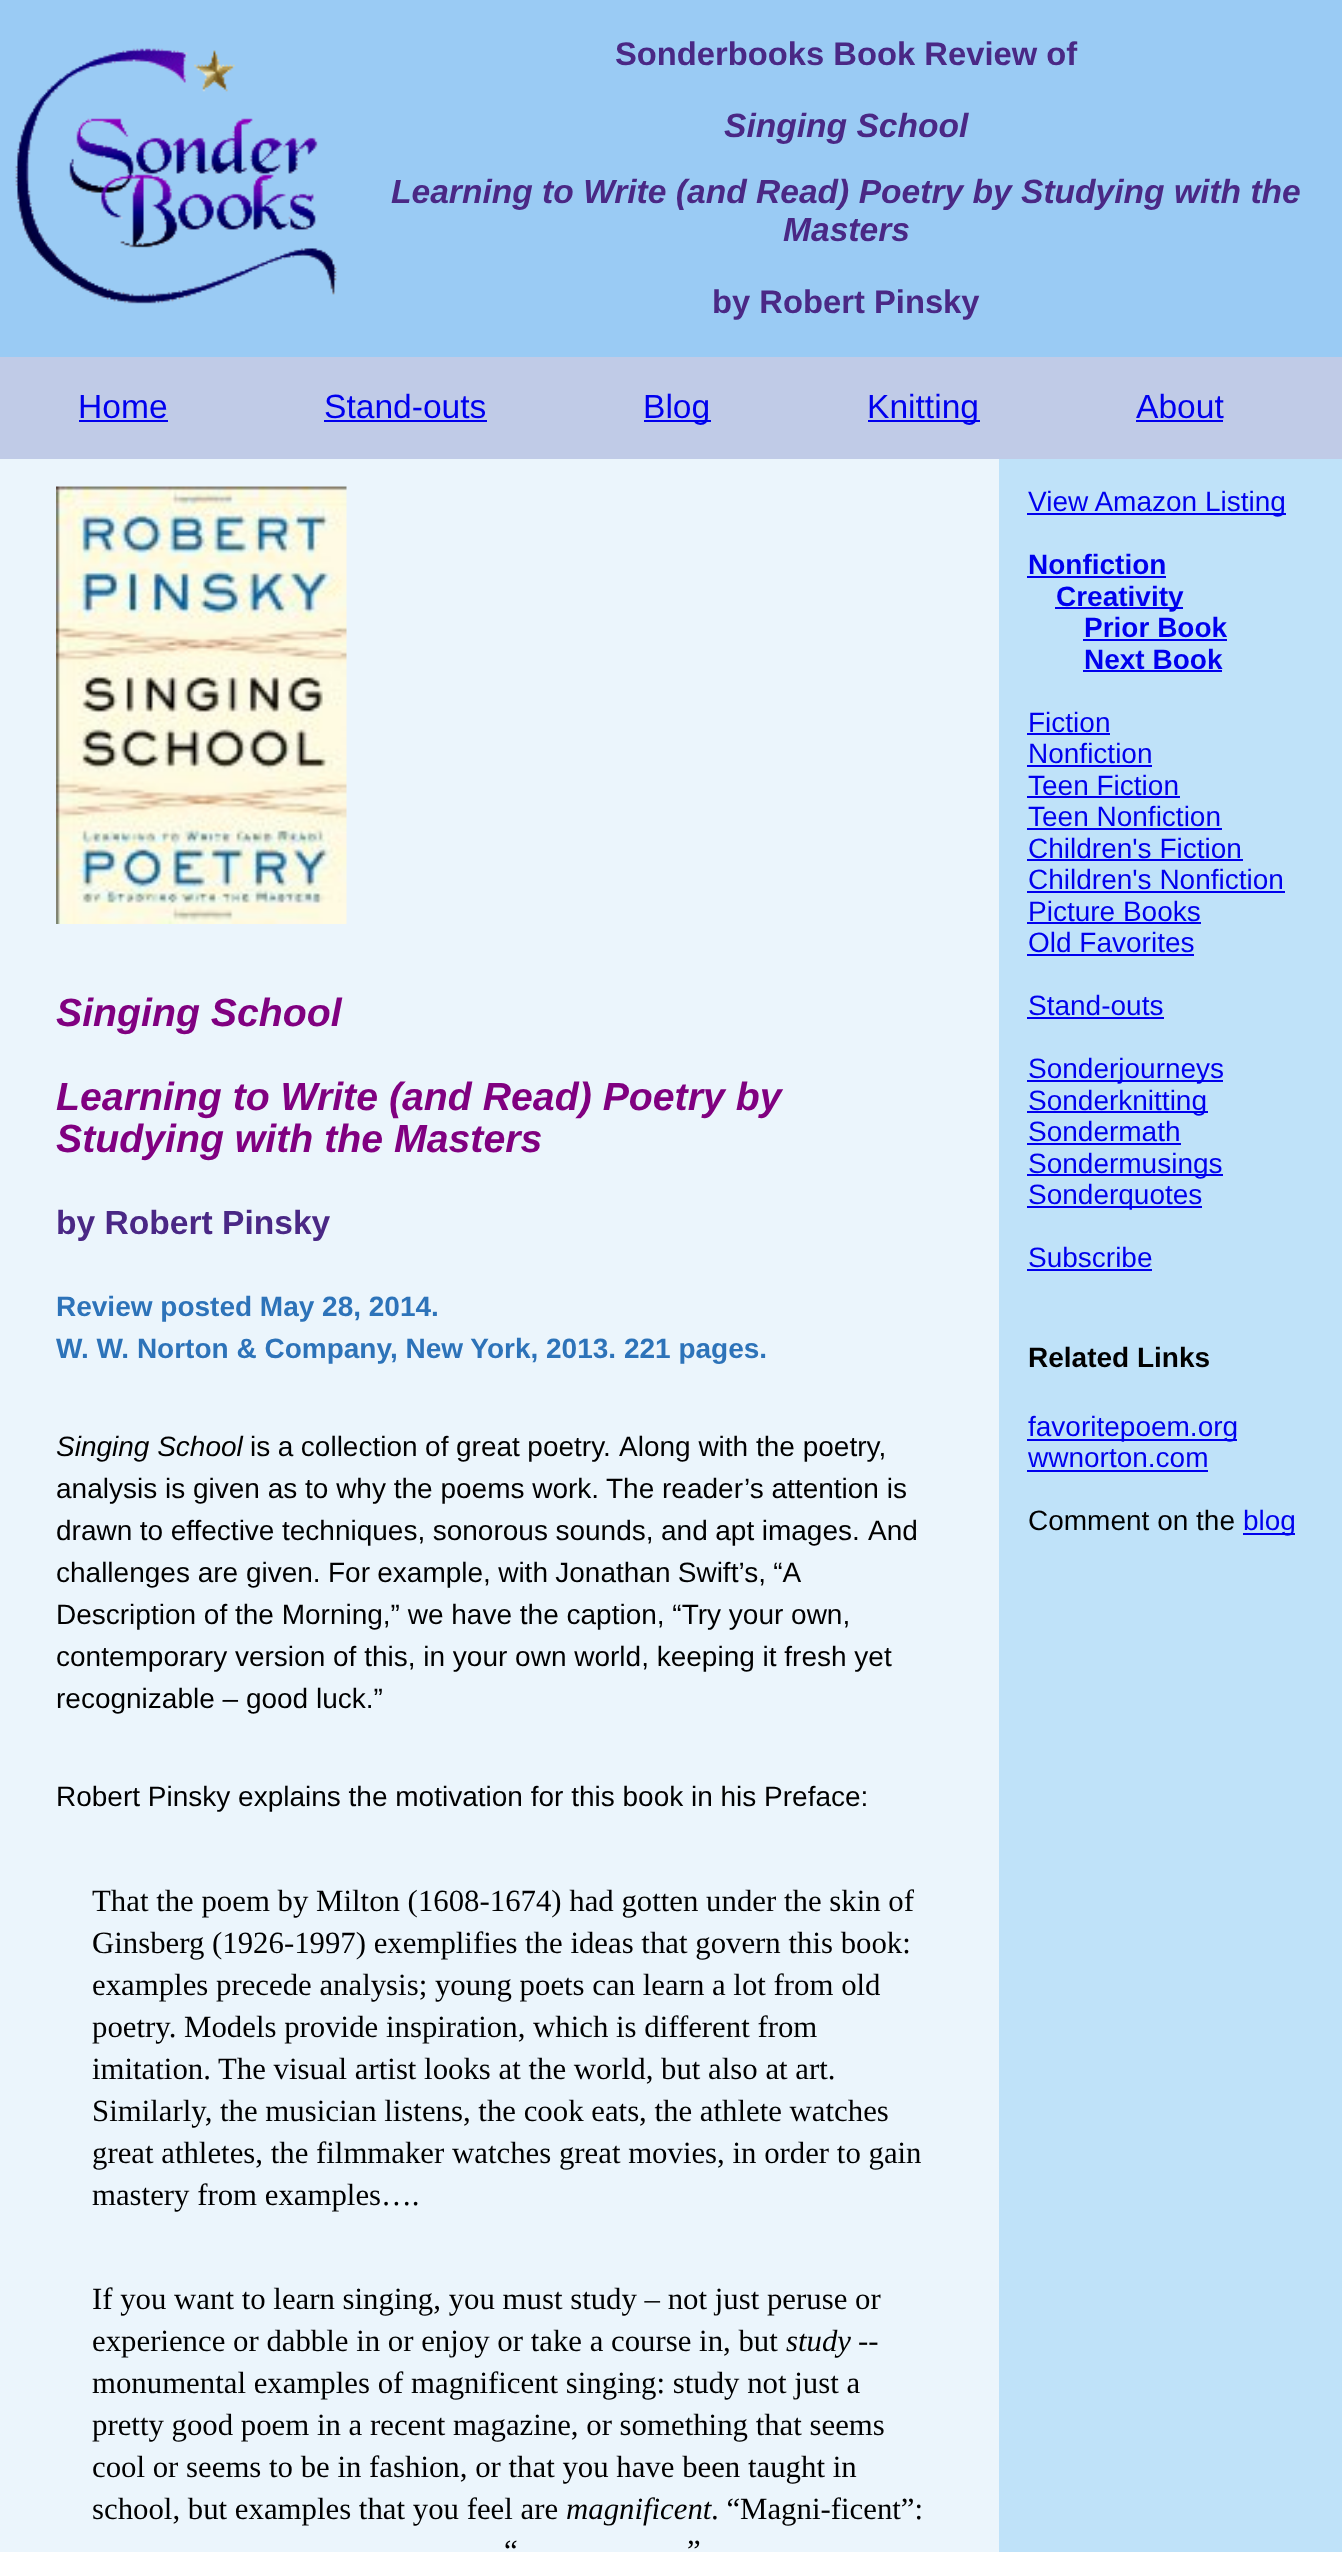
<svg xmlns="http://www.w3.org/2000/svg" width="1342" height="2552">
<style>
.a{font:bold 32.75px Liberation Sans;fill:#4a2885}
.b{font:italic bold 33.6px Liberation Sans;fill:#4a2885}
.c{font:33.6px Liberation Sans;fill:#00e}
.d{font:italic bold 39.25px Liberation Sans;fill:#800080}
.e{font:bold 33.6px Liberation Sans;fill:#4a2885}
.f{font:bold 28px Liberation Sans;fill:#2d73b9}
.g{font:italic 28px Liberation Sans;fill:#000}
.h{font:28px Liberation Sans;fill:#000}
.i{font:30.8px Liberation Serif;fill:#000}
.j{font:italic 30.8px Liberation Serif;fill:#000}
.k{font:28px Liberation Sans;fill:#00e}
.l{font:bold 28px Liberation Sans;fill:#00e}
.m{font:bold 28px Liberation Sans;fill:#000}
</style>
<rect width="100%" height="100%" fill="#9acbf4"/>
<image href="1.png" x="15" y="48" width="322" height="256"/>
<path fill="#c0cbe7" d="M0 357h1342v102H0z"/>
<path fill="#00e" d="M79 420h89v2H79z"/>
<path fill="#00e" d="M324 420h163v2H324z"/>
<path fill="#00e" d="M644 420h67v2H644z"/>
<path fill="#00e" d="M868 420h112v2H868z"/>
<path fill="#00e" d="M1136 420h87v2H1136z"/>
<path fill="#ebf5fc" d="M0 459h999v2093H0z"/>
<image href="2.png" x="56" y="486" width="291" height="438"/>
<path fill="#bfe2f9" d="M999 459h343v2093H999z"/>
<path fill="#00e" d="M1027 513h259v2H1027z"/>
<path fill="#00e" d="M1027 576h139v2H1027z"/>
<path fill="#00e" d="M1055 607h128v2H1055z"/>
<path fill="#00e" d="M1083 639h144v2H1083z"/>
<path fill="#00e" d="M1083 670h139v2H1083z"/>
<path fill="#00e" d="M1027 733h83v2H1027z"/>
<path fill="#00e" d="M1027 765h125v2H1027z"/>
<path fill="#00e" d="M1027 796h153v2H1027z"/>
<path fill="#00e" d="M1027 828h195v2H1027z"/>
<path fill="#00e" d="M1027 859h216v2H1027z"/>
<path fill="#00e" d="M1027 891h258v2H1027z"/>
<path fill="#00e" d="M1027 922h174v2H1027z"/>
<path fill="#00e" d="M1027 954h167v2H1027z"/>
<path fill="#00e" d="M1027 1017h137v2H1027z"/>
<path fill="#00e" d="M1027 1080h196v2H1027z"/>
<path fill="#00e" d="M1027 1111h181v2H1027z"/>
<path fill="#00e" d="M1027 1143h154v2H1027z"/>
<path fill="#00e" d="M1027 1174h196v2H1027z"/>
<path fill="#00e" d="M1027 1206h175v2H1027z"/>
<path fill="#00e" d="M1027 1269h125v2H1027z"/>
<path fill="#00e" d="M1027 1439h210v2H1027z"/>
<path fill="#00e" d="M1027 1470h181v2H1027z"/>
<path fill="#00e" d="M1243 1533h52v2H1243z"/>
<text class="a" x="615" y="65">Sonderbooks Book Review of</text>
<text class="b" x="724" y="137">Singing School</text>
<text class="b" x="391" y="203">Learning to Write (and Read) Poetry by Studying with the</text>
<text class="b" x="783" y="241">Masters</text>
<text class="a" x="712" y="313">by Robert Pinsky</text>
<text class="c" x="78" y="418">Home</text>
<text class="c" x="324" y="418">Stand-outs</text>
<text class="c" x="643" y="418">Blog</text>
<text class="c" x="867" y="418">Knitting</text>
<text class="c" x="1136" y="418">About</text>
<text class="d" x="56" y="1026">Singing School</text>
<text class="d" x="56" y="1110">Learning to Write (and Read) Poetry by</text>
<text class="d" x="56" y="1152">Studying with the Masters</text>
<text class="e" x="56" y="1234">by Robert Pinsky</text>
<text class="f" x="56" y="1316">Review posted May 28, 2014.</text>
<text class="f" x="56" y="1358">W. W. Norton &amp; Company, New York, 2013. 221 pages.</text>
<text class="g" x="56" y="1456">Singing School</text>
<text class="h" x="250" y="1456" word-spacing="-0.25">is a collection of great poetry.</text>
<text class="h" x="619" y="1456">Along with the poetry,</text>
<text class="h" x="56" y="1498">analysis is given as to why the poems work.</text>
<text class="h" x="606" y="1498">The reader’s attention is</text>
<text class="h" x="56" y="1540" word-spacing="-0.25">drawn to effective techniques, sonorous sounds, and apt images.</text>
<text class="h" x="868" y="1540">And</text>
<text class="h" x="56" y="1582">challenges are given.</text>
<text class="h" x="328" y="1582" word-spacing="-0.5">For example, with Jonathan Swift’s, “A</text>
<text class="h" x="56" y="1624">Description of the Morning,” we have the caption, “Try your own,</text>
<text class="h" x="56" y="1666">contemporary version of this, in your own world, keeping it fresh yet</text>
<text class="h" x="56" y="1708">recognizable – good luck.”</text>
<text class="h" x="56" y="1806">Robert Pinsky explains the motivation for this book in his Preface:</text>
<text class="i" x="92" y="1911">That the poem by Milton (1608-1674) had gotten under the skin of</text>
<text class="i" x="92" y="1953">Ginsberg (1926-1997) exemplifies the ideas that govern this book:</text>
<text class="i" x="92" y="1995">examples precede analysis; young poets can learn a lot from old</text>
<text class="i" x="92" y="2037">poetry. Models provide inspiration, which is different from</text>
<text class="i" x="92" y="2079">imitation.</text>
<text class="i" x="218" y="2079">The visual artist looks at the world, but also at art.</text>
<text class="i" x="92" y="2121">Similarly, the musician listens, the cook eats, the athlete watches</text>
<text class="i" x="92" y="2163">great athletes, the filmmaker watches great movies, in order to gain</text>
<text class="i" x="92" y="2205">mastery from examples….</text>
<text class="i" x="92" y="2309">If you want to learn singing, you must study – not just peruse or</text>
<text class="i" x="92" y="2351">experience or dabble in or enjoy or take a course in, but</text>
<text class="j" x="786" y="2351">study</text>
<text class="i" x="858" y="2351">--</text>
<text class="i" x="92" y="2393">monumental examples of magnificent singing: study not just a</text>
<text class="i" x="92" y="2435">pretty good poem in a recent magazine, or something that seems</text>
<text class="i" x="92" y="2477">cool or seems to be in fashion, or that you have been taught in</text>
<text class="i" x="92" y="2519">school, but examples that you feel are</text>
<text class="j" x="566" y="2519">magnificent</text>
<text class="i" x="711" y="2519">. “Magni-ficent”:</text>
<text class="i" x="504" y="2561">“</text>
<text class="i" x="687" y="2561">”</text>
<text class="k" x="1028" y="511">View Amazon Listing</text>
<text class="l" x="1028" y="574">Nonfiction</text>
<text class="l" x="1056" y="606">Creativity</text>
<text class="l" x="1084" y="637">Prior Book</text>
<text class="l" x="1084" y="669">Next Book</text>
<text class="k" x="1028" y="732">Fiction</text>
<text class="k" x="1028" y="763">Nonfiction</text>
<text class="k" x="1028" y="795">Teen Fiction</text>
<text class="k" x="1028" y="826">Teen Nonfiction</text>
<text class="k" x="1028" y="858">Children's Fiction</text>
<text class="k" x="1028" y="889">Children's Nonfiction</text>
<text class="k" x="1028" y="921">Picture Books</text>
<text class="k" x="1028" y="952">Old Favorites</text>
<text class="k" x="1028" y="1015">Stand-outs</text>
<text class="k" x="1028" y="1078">Sonderjourneys</text>
<text class="k" x="1028" y="1110">Sonderknitting</text>
<text class="k" x="1028" y="1141">Sondermath</text>
<text class="k" x="1028" y="1173">Sondermusings</text>
<text class="k" x="1028" y="1204">Sonderquotes</text>
<text class="k" x="1028" y="1267">Subscribe</text>
<text class="m" x="1028" y="1367">Related Links</text>
<text class="k" x="1028" y="1436">favoritepoem.org</text>
<text class="k" x="1028" y="1467">wwnorton.com</text>
<text class="h" x="1028" y="1530">Comment on the</text>
<text class="k" x="1243" y="1530">blog</text>
</svg>
